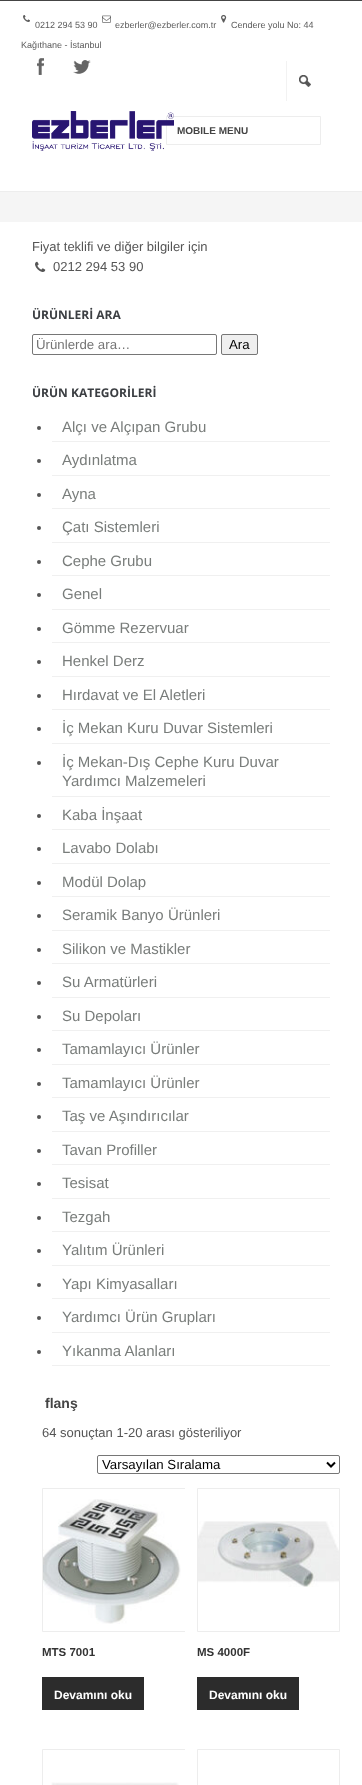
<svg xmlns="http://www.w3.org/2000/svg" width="362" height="1785">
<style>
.a{font:9px Liberation Sans;fill:#5c5c5c}
.b{font:bold 10px Liberation Sans;fill:#444}
.c{font:13px Liberation Sans;fill:#555}
.d{font:bold 12px Open Sans;fill:#3b3e42}
.e{font:13.25px Liberation Sans;fill:#757575}
.f{font:13.25px Liberation Sans;fill:#000}
.g{font:15px Liberation Sans;fill:#797d7b}
.h{font:bold 14px Liberation Sans;fill:#444}
.i{font:bold 11.5px Liberation Sans;fill:#333}
.j{font:bold 12px Liberation Sans;fill:#fff}
</style>
<defs>
<clipPath id="clip1"><path d="M42 1488h143v222H42z"/></clipPath>
<clipPath id="clip2"><path d="M42 1749h143v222H42z"/></clipPath>
</defs>
<rect width="100%" height="100%" fill="#fff"/>
<path fill="#444" d="M0 0h362v1H0z"/>
<path fill="#ededed" d="M0 191h362v1H0z"/>
<image href="1.png" x="221" y="14" width="6" height="9"/>
<image href="2.png" x="23" y="15" width="7" height="7"/>
<image href="3.png" x="102" y="15" width="9" height="8"/>
<image href="4.png" x="37" y="58" width="7" height="17"/>
<image href="5.png" x="73" y="60" width="18" height="14"/>
<image href="6.png" x="299" y="75" width="12" height="12"/>
<path fill="#f2f2f2" d="M286 61h1v40H286z"/>
<path fill="none" stroke="#ededed" d="M166.5 116.5h154v28H166.5z"/>
<image href="7.png" x="32" y="111" width="142" height="40"/>
<path fill="#f5f5f5" d="M0 192h362v30H0z"/>
<image href="8.png" x="35" y="261" width="11" height="11"/>
<rect fill="none" stroke="#767676" x="32.5" y="334.5" width="184" height="20" rx="1.5"/>
<rect fill="#efefef" stroke="#767676" x="221.5" y="334.5" width="36" height="20" rx="1.5"/>
<circle fill="#555" cx="39" cy="428" r="2"/>
<path fill="#f0f0f0" d="M52 441h278v1H52z"/>
<circle fill="#555" cx="39" cy="461" r="2"/>
<path fill="#f0f0f0" d="M52 475h278v1H52z"/>
<circle fill="#555" cx="39" cy="495" r="2"/>
<path fill="#f0f0f0" d="M52 508h278v1H52z"/>
<circle fill="#555" cx="39" cy="528" r="2"/>
<path fill="#f0f0f0" d="M52 542h278v1H52z"/>
<circle fill="#555" cx="39" cy="562" r="2"/>
<path fill="#f0f0f0" d="M52 575h278v1H52z"/>
<circle fill="#555" cx="39" cy="595" r="2"/>
<path fill="#f0f0f0" d="M52 609h278v1H52z"/>
<circle fill="#555" cx="39" cy="629" r="2"/>
<path fill="#f0f0f0" d="M52 642h278v1H52z"/>
<circle fill="#555" cx="39" cy="662" r="2"/>
<path fill="#f0f0f0" d="M52 676h278v1H52z"/>
<circle fill="#555" cx="39" cy="696" r="2"/>
<path fill="#f0f0f0" d="M52 709h278v1H52z"/>
<circle fill="#555" cx="39" cy="729" r="2"/>
<path fill="#f0f0f0" d="M52 743h278v1H52z"/>
<circle fill="#555" cx="39" cy="763" r="2"/>
<path fill="#f0f0f0" d="M52 796h278v1H52z"/>
<circle fill="#555" cx="39" cy="816" r="2"/>
<path fill="#f0f0f0" d="M52 829h278v1H52z"/>
<circle fill="#555" cx="39" cy="849" r="2"/>
<path fill="#f0f0f0" d="M52 863h278v1H52z"/>
<circle fill="#555" cx="39" cy="883" r="2"/>
<path fill="#f0f0f0" d="M52 896h278v1H52z"/>
<circle fill="#555" cx="39" cy="916" r="2"/>
<path fill="#f0f0f0" d="M52 930h278v1H52z"/>
<circle fill="#555" cx="39" cy="950" r="2"/>
<path fill="#f0f0f0" d="M52 963h278v1H52z"/>
<circle fill="#555" cx="39" cy="983" r="2"/>
<path fill="#f0f0f0" d="M52 997h278v1H52z"/>
<circle fill="#555" cx="39" cy="1017" r="2"/>
<path fill="#f0f0f0" d="M52 1030h278v1H52z"/>
<circle fill="#555" cx="39" cy="1050" r="2"/>
<path fill="#f0f0f0" d="M52 1064h278v1H52z"/>
<circle fill="#555" cx="39" cy="1084" r="2"/>
<path fill="#f0f0f0" d="M52 1097h278v1H52z"/>
<circle fill="#555" cx="39" cy="1117" r="2"/>
<path fill="#f0f0f0" d="M52 1131h278v1H52z"/>
<circle fill="#555" cx="39" cy="1151" r="2"/>
<path fill="#f0f0f0" d="M52 1164h278v1H52z"/>
<circle fill="#555" cx="39" cy="1184" r="2"/>
<path fill="#f0f0f0" d="M52 1198h278v1H52z"/>
<circle fill="#555" cx="39" cy="1218" r="2"/>
<path fill="#f0f0f0" d="M52 1231h278v1H52z"/>
<circle fill="#555" cx="39" cy="1251" r="2"/>
<path fill="#f0f0f0" d="M52 1265h278v1H52z"/>
<circle fill="#555" cx="39" cy="1285" r="2"/>
<path fill="#f0f0f0" d="M52 1298h278v1H52z"/>
<circle fill="#555" cx="39" cy="1318" r="2"/>
<path fill="#f0f0f0" d="M52 1332h278v1H52z"/>
<circle fill="#555" cx="39" cy="1352" r="2"/>
<path fill="#f0f0f0" d="M52 1365h278v1H52z"/>
<rect fill="none" stroke="#767676" x="97.5" y="1455.5" width="242" height="18" rx="1.5"/>
<path fill="none" stroke="#000" stroke-width="2" d="M327 1462.5l4 4l4-4"/>
<g clip-path="url(#clip1)">
<path fill="none" stroke="#ededed" d="M42.5 1488.5h143v143H42.5z"/>
</g>
<image href="9.png" x="43" y="1499" width="138" height="125"/>
<path fill="#2c2c2c" d="M42 1677h102v33H42z"/>
<path fill="none" stroke="#ededed" d="M197.5 1488.5h142v143H197.5z"/>
<image href="10.png" x="198" y="1521" width="141" height="66"/>
<path fill="#2c2c2c" d="M197 1677h102v33H197z"/>
<g clip-path="url(#clip2)">
<path fill="none" stroke="#ededed" d="M42.5 1749.5h143v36H42.5z"/>
</g>
<image href="11.png" x="51" y="1782" width="128" height="3"/>
<path fill="none" stroke="#ededed" d="M197.5 1749.5h142v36H197.5z"/>
<text class="a" x="231" y="28">Cendere yolu No: 44</text>
<text class="a" x="21" y="48">Kağıthane - İstanbul</text>
<text class="a" x="35" y="28">0212 294 53 90</text>
<text class="a" x="115" y="28">ezberler@ezberler.com.tr</text>
<text class="b" x="177" y="134">MOBILE MENU</text>
<text class="c" x="32" y="251">Fiyat teklifi ve diğer bilgiler için</text>
<text class="c" x="53" y="271">0212 294 53 90</text>
<text class="d" x="32" y="319">ÜRÜNLERİ ARA</text>
<text class="e" x="36" y="349">Ürünlerde ara…</text>
<text class="f" x="229" y="349">Ara</text>
<text class="d" x="32" y="397">ÜRÜN KATEGORİLERİ</text>
<text class="g" x="62" y="432">Alçı ve Alçıpan Grubu</text>
<text class="g" x="62" y="465">Aydınlatma</text>
<text class="g" x="62" y="499">Ayna</text>
<text class="g" x="62" y="532">Çatı Sistemleri</text>
<text class="g" x="62" y="566">Cephe Grubu</text>
<text class="g" x="62" y="599">Genel</text>
<text class="g" x="62" y="633">Gömme Rezervuar</text>
<text class="g" x="62" y="666">Henkel Derz</text>
<text class="g" x="62" y="700">Hırdavat ve El Aletleri</text>
<text class="g" x="62" y="733">İç Mekan Kuru Duvar Sistemleri</text>
<text class="g" x="62" y="767">İç Mekan-Dış Cephe Kuru Duvar</text>
<text class="g" x="62" y="786">Yardımcı Malzemeleri</text>
<text class="g" x="62" y="820">Kaba İnşaat</text>
<text class="g" x="62" y="853">Lavabo Dolabı</text>
<text class="g" x="62" y="887">Modül Dolap</text>
<text class="g" x="62" y="920">Seramik Banyo Ürünleri</text>
<text class="g" x="62" y="954">Silikon ve Mastikler</text>
<text class="g" x="62" y="987">Su Armatürleri</text>
<text class="g" x="62" y="1021">Su Depoları</text>
<text class="g" x="62" y="1054">Tamamlayıcı Ürünler</text>
<text class="g" x="62" y="1088">Tamamlayıcı Ürünler</text>
<text class="g" x="62" y="1121">Taş ve Aşındırıcılar</text>
<text class="g" x="62" y="1155">Tavan Profiller</text>
<text class="g" x="62" y="1188">Tesisat</text>
<text class="g" x="62" y="1222">Tezgah</text>
<text class="g" x="62" y="1255">Yalıtım Ürünleri</text>
<text class="g" x="62" y="1289">Yapı Kimyasalları</text>
<text class="g" x="62" y="1322">Yardımcı Ürün Grupları</text>
<text class="g" x="62" y="1356">Yıkanma Alanları</text>
<text class="h" x="45" y="1408">flanş</text>
<text class="c" x="42" y="1437">64 sonuçtan 1-20 arası gösteriliyor</text>
<text class="f" x="102" y="1469">Varsayılan Sıralama</text>
<text class="i" x="42" y="1656">MTS 7001</text>
<text class="j" x="54" y="1699">Devamını oku</text>
<text class="i" x="197" y="1656">MS 4000F</text>
<text class="j" x="209" y="1699">Devamını oku</text>
</svg>
